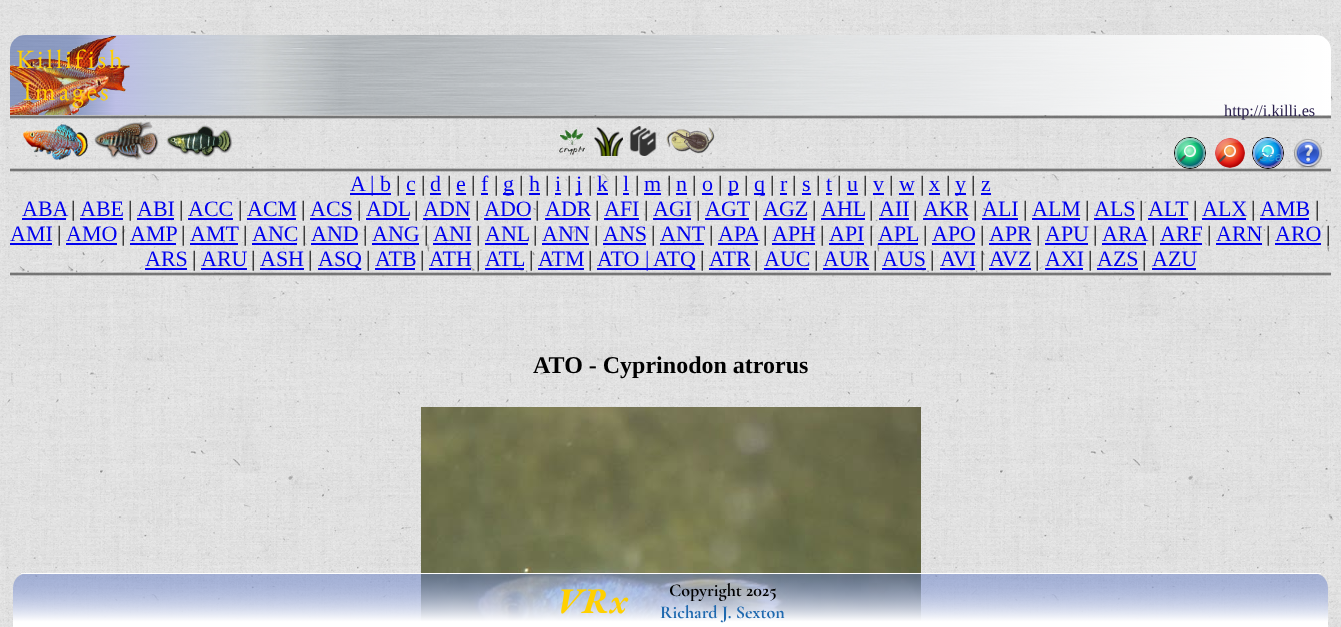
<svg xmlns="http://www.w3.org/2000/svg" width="1341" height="627">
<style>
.a{font:26.5px EB Garamond;letter-spacing:3px;fill:#ffd000}
.b{font:16.25px Liberation Serif;fill:#261c4a}
.c{font:13px Liberation Sans;fill:#389ad3}
.d{font:22px Liberation Serif;fill:#00e}
.e{font:22px Liberation Serif;fill:#000}
.f{font:bold 24px Liberation Serif;fill:#000}
.g{font:italic bold 36px EB Garamond;fill:#ffd000}
.h{font:bold 18px Cormorant Garamond;fill:#000}
.i{font:bold 18px Cormorant Garamond;fill:#1f69af}
</style>
<defs>
<clipPath id="clip1"><path d="M28 573h1285c8.5 0 15 6.5 15 15v39h-1315v-39c0-8.5 6.5-15 15-15z"/></clipPath>
<linearGradient id="g1" gradientUnits="userSpaceOnUse" x1="671" y1="521" x2="671" y2="574"><stop offset="0.05" stop-color="#657ec7" stop-opacity="0.5"/><stop offset="0.9" stop-color="#fff"/><stop offset="1" stop-color="#fff"/></linearGradient>
<linearGradient id="g2" gradientUnits="userSpaceOnUse" x1="671" y1="574" x2="671" y2="627"><stop offset="0.05" stop-color="#657ec7" stop-opacity="0.5"/><stop offset="0.9" stop-color="#fff"/><stop offset="1" stop-color="#fff"/></linearGradient>
<clipPath id="clip2"><path d="M1259 149h22v15H1259z"/></clipPath>
</defs>
<rect width="100%" height="100%" fill="#fff"/>
<image href="1.png" x="0" y="0" width="1341" height="627"/>
<image href="2.png" x="10" y="35" width="1321" height="80"/>
<image href="3.png" x="10" y="36" width="120" height="79"/>
<image href="4.png" x="23" y="124" width="65" height="36"/>
<image href="5.png" x="94" y="121" width="65" height="39"/>
<image href="6.png" x="166" y="125" width="67" height="33"/>
<image href="7.png" x="558" y="128" width="28" height="27"/>
<image href="8.png" x="594" y="127" width="29" height="29"/>
<image href="9.png" x="629" y="126" width="28" height="30"/>
<image href="10.png" x="666" y="127" width="49" height="27"/>
<circle fill="none" stroke="#000000fc" cx="1190" cy="153" r="15.5"/>
<circle fill="#d0ffd0" cx="1190" cy="153" r="15"/>
<image href="11.png" x="1175" y="138" width="30" height="30"/>
<circle fill="none" stroke="#ffffff59" stroke-width="2" cx="1190" cy="153" r="14"/>
<image href="12.png" x="1215" y="138" width="30" height="30"/>
<circle fill="none" stroke="#000000fc" cx="1268" cy="153" r="15.5"/>
<circle fill="#d0d0ff" cx="1268" cy="153" r="15"/>
<image href="13.png" x="1253" y="138" width="30" height="30"/>
<circle fill="none" stroke="#ffffff59" stroke-width="2" cx="1268" cy="153" r="14"/>
<image href="14.png" x="1294" y="139" width="29" height="29"/>
<path fill="#00e" d="M350 193h41v2H350z"/>
<path fill="#00e" d="M406 193h9v2H406z"/>
<path fill="#00e" d="M430 193h11v2H430z"/>
<path fill="#00e" d="M456 193h10v2H456z"/>
<path fill="#00e" d="M481 193h7v2H481z"/>
<path fill="#00e" d="M503 193h11v2H503z"/>
<path fill="#00e" d="M529 193h11v2H529z"/>
<path fill="#00e" d="M555 193h6v2H555z"/>
<path fill="#00e" d="M576 193h6v2H576z"/>
<path fill="#00e" d="M597 193h11v2H597z"/>
<path fill="#00e" d="M623 193h6v2H623z"/>
<path fill="#00e" d="M644 193h17v2H644z"/>
<path fill="#00e" d="M676 193h11v2H676z"/>
<path fill="#00e" d="M702 193h11v2H702z"/>
<path fill="#00e" d="M728 193h11v2H728z"/>
<path fill="#00e" d="M754 193h11v2H754z"/>
<path fill="#00e" d="M780 193h7v2H780z"/>
<path fill="#00e" d="M802 193h9v2H802z"/>
<path fill="#00e" d="M826 193h6v2H826z"/>
<path fill="#00e" d="M847 193h11v2H847z"/>
<path fill="#00e" d="M873 193h11v2H873z"/>
<path fill="#00e" d="M899 193h15v2H899z"/>
<path fill="#00e" d="M929 193h11v2H929z"/>
<path fill="#00e" d="M955 193h11v2H955z"/>
<path fill="#00e" d="M981 193h10v2H981z"/>
<path fill="#00e" d="M22 218h44v2H22z"/>
<path fill="#00e" d="M80 218h43v2H80z"/>
<path fill="#00e" d="M137 218h37v2H137z"/>
<path fill="#00e" d="M188 218h45v2H188z"/>
<path fill="#00e" d="M247 218h49v2H247z"/>
<path fill="#00e" d="M310 218h42v2H310z"/>
<path fill="#00e" d="M366 218h43v2H366z"/>
<path fill="#00e" d="M423 218h47v2H423z"/>
<path fill="#00e" d="M484 218h47v2H484z"/>
<path fill="#00e" d="M545 218h45v2H545z"/>
<path fill="#00e" d="M604 218h35v2H604z"/>
<path fill="#00e" d="M653 218h38v2H653z"/>
<path fill="#00e" d="M705 218h44v2H705z"/>
<path fill="#00e" d="M763 218h44v2H763z"/>
<path fill="#00e" d="M821 218h44v2H821z"/>
<path fill="#00e" d="M879 218h30v2H879z"/>
<path fill="#00e" d="M923 218h45v2H923z"/>
<path fill="#00e" d="M982 218h36v2H982z"/>
<path fill="#00e" d="M1032 218h48v2H1032z"/>
<path fill="#00e" d="M1094 218h41v2H1094z"/>
<path fill="#00e" d="M1148 218h40v2H1148z"/>
<path fill="#00e" d="M1202 218h44v2H1202z"/>
<path fill="#00e" d="M1260 218h49v2H1260z"/>
<path fill="#00e" d="M10 243h42v2H10z"/>
<path fill="#00e" d="M66 243h51v2H66z"/>
<path fill="#00e" d="M130 243h46v2H130z"/>
<path fill="#00e" d="M190 243h48v2H190z"/>
<path fill="#00e" d="M252 243h45v2H252z"/>
<path fill="#00e" d="M311 243h47v2H311z"/>
<path fill="#00e" d="M372 243h47v2H372z"/>
<path fill="#00e" d="M433 243h38v2H433z"/>
<path fill="#00e" d="M485 243h43v2H485z"/>
<path fill="#00e" d="M542 243h47v2H542z"/>
<path fill="#00e" d="M603 243h43v2H603z"/>
<path fill="#00e" d="M660 243h44v2H660z"/>
<path fill="#00e" d="M718 243h40v2H718z"/>
<path fill="#00e" d="M772 243h43v2H772z"/>
<path fill="#00e" d="M829 243h35v2H829z"/>
<path fill="#00e" d="M878 243h40v2H878z"/>
<path fill="#00e" d="M932 243h43v2H932z"/>
<path fill="#00e" d="M989 243h42v2H989z"/>
<path fill="#00e" d="M1045 243h43v2H1045z"/>
<path fill="#00e" d="M1102 243h44v2H1102z"/>
<path fill="#00e" d="M1160 243h42v2H1160z"/>
<path fill="#00e" d="M1216 243h46v2H1216z"/>
<path fill="#00e" d="M1275 243h46v2H1275z"/>
<path fill="#00e" d="M145 268h42v2H145z"/>
<path fill="#00e" d="M201 268h46v2H201z"/>
<path fill="#00e" d="M260 268h44v2H260z"/>
<path fill="#00e" d="M318 268h43v2H318z"/>
<path fill="#00e" d="M375 268h40v2H375z"/>
<path fill="#00e" d="M429 268h42v2H429z"/>
<path fill="#00e" d="M485 268h39v2H485z"/>
<path fill="#00e" d="M538 268h46v2H538z"/>
<path fill="#00e" d="M597 268h98v2H597z"/>
<path fill="#00e" d="M709 268h41v2H709z"/>
<path fill="#00e" d="M764 268h45v2H764z"/>
<path fill="#00e" d="M823 268h46v2H823z"/>
<path fill="#00e" d="M882 268h44v2H882z"/>
<path fill="#00e" d="M940 268h35v2H940z"/>
<path fill="#00e" d="M989 268h42v2H989z"/>
<path fill="#00e" d="M1045 268h38v2H1045z"/>
<path fill="#00e" d="M1097 268h41v2H1097z"/>
<path fill="#00e" d="M1152 268h44v2H1152z"/>
<image href="15.png" x="421" y="407" width="500" height="214"/>
<g clip-path="url(#clip1)">
<path fill="url(#g1)" d="M23 573h1295v1H23z"/>
<path fill="url(#g2)" d="M13 574h1315v53H13z"/>
</g>
<path fill="#ffffffcc" d="M21 573h1300v1H21z"/>
<text class="a" x="16" y="68">Killifish</text>
<text class="a" x="23" y="100">Images</text>
<text class="b" x="1224" y="116">http://i.killi.es</text>
<g clip-path="url(#clip2)">
<text class="c" x="1259" y="161">Sea</text>
</g>
<text class="d" x="350" y="191">A</text>
<text class="d" x="370" y="191">| b</text>
<text class="e" x="396" y="191">|</text>
<text class="d" x="406" y="191">c</text>
<text class="e" x="421" y="191">|</text>
<text class="d" x="430" y="191">d</text>
<text class="e" x="447" y="191">|</text>
<text class="d" x="456" y="191">e</text>
<text class="e" x="471" y="191">|</text>
<text class="d" x="481" y="191">f</text>
<text class="e" x="494" y="191">|</text>
<text class="d" x="503" y="191">g</text>
<text class="e" x="519" y="191">|</text>
<text class="d" x="529" y="191">h</text>
<text class="e" x="545" y="191">|</text>
<text class="d" x="555" y="191">i</text>
<text class="e" x="567" y="191">|</text>
<text class="d" x="576" y="191">j</text>
<text class="e" x="588" y="191">|</text>
<text class="d" x="597" y="191">k</text>
<text class="e" x="614" y="191">|</text>
<text class="d" x="623" y="191">l</text>
<text class="e" x="635" y="191">|</text>
<text class="d" x="644" y="191">m</text>
<text class="e" x="667" y="191">|</text>
<text class="d" x="676" y="191">n</text>
<text class="e" x="692" y="191">|</text>
<text class="d" x="702" y="191">o</text>
<text class="e" x="718" y="191">|</text>
<text class="d" x="728" y="191">p</text>
<text class="e" x="744" y="191">|</text>
<text class="d" x="754" y="191">q</text>
<text class="e" x="770" y="191">|</text>
<text class="d" x="780" y="191">r</text>
<text class="e" x="792" y="191">|</text>
<text class="d" x="802" y="191">s</text>
<text class="e" x="816" y="191">|</text>
<text class="d" x="826" y="191">t</text>
<text class="e" x="837" y="191">|</text>
<text class="d" x="847" y="191">u</text>
<text class="e" x="863" y="191">|</text>
<text class="d" x="873" y="191">v</text>
<text class="e" x="889" y="191">|</text>
<text class="d" x="899" y="191">w</text>
<text class="e" x="920" y="191">|</text>
<text class="d" x="929" y="191">x</text>
<text class="e" x="946" y="191">|</text>
<text class="d" x="955" y="191">y</text>
<text class="e" x="971" y="191">|</text>
<text class="d" x="981" y="191">z</text>
<text class="d" x="22" y="216">ABA</text>
<text class="e" x="71" y="216">|</text>
<text class="d" x="80" y="216">ABE</text>
<text class="e" x="128" y="216">|</text>
<text class="d" x="137" y="216">ABI</text>
<text class="e" x="179" y="216">|</text>
<text class="d" x="188" y="216">ACC</text>
<text class="e" x="238" y="216">|</text>
<text class="d" x="247" y="216">ACM</text>
<text class="e" x="301" y="216">|</text>
<text class="d" x="310" y="216">ACS</text>
<text class="e" x="357" y="216">|</text>
<text class="d" x="366" y="216">ADL</text>
<text class="e" x="414" y="216">|</text>
<text class="d" x="423" y="216">ADN</text>
<text class="e" x="475" y="216">|</text>
<text class="d" x="484" y="216">ADO</text>
<text class="e" x="535" y="216">|</text>
<text class="d" x="545" y="216">ADR</text>
<text class="e" x="595" y="216">|</text>
<text class="d" x="604" y="216">AFI</text>
<text class="e" x="644" y="216">|</text>
<text class="d" x="653" y="216">AGI</text>
<text class="e" x="696" y="216">|</text>
<text class="d" x="705" y="216">AGT</text>
<text class="e" x="754" y="216">|</text>
<text class="d" x="763" y="216">AGZ</text>
<text class="e" x="812" y="216">|</text>
<text class="d" x="821" y="216">AHL</text>
<text class="e" x="869" y="216">|</text>
<text class="d" x="879" y="216">AII</text>
<text class="e" x="913" y="216">|</text>
<text class="d" x="923" y="216">AKR</text>
<text class="e" x="973" y="216">|</text>
<text class="d" x="982" y="216">ALI</text>
<text class="e" x="1023" y="216">|</text>
<text class="d" x="1032" y="216">ALM</text>
<text class="e" x="1085" y="216">|</text>
<text class="d" x="1094" y="216">ALS</text>
<text class="e" x="1139" y="216">|</text>
<text class="d" x="1148" y="216">ALT</text>
<text class="e" x="1193" y="216">|</text>
<text class="d" x="1202" y="216">ALX</text>
<text class="e" x="1251" y="216">|</text>
<text class="d" x="1260" y="216">AMB</text>
<text class="e" x="1315" y="216">|</text>
<text class="d" x="10" y="241">AMI</text>
<text class="e" x="57" y="241">|</text>
<text class="d" x="66" y="241">AMO</text>
<text class="e" x="121" y="241">|</text>
<text class="d" x="130" y="241">AMP</text>
<text class="e" x="181" y="241">|</text>
<text class="d" x="190" y="241">AMT</text>
<text class="e" x="243" y="241">|</text>
<text class="d" x="252" y="241">ANC</text>
<text class="e" x="302" y="241">|</text>
<text class="d" x="311" y="241">AND</text>
<text class="e" x="363" y="241">|</text>
<text class="d" x="372" y="241">ANG</text>
<text class="e" x="424" y="241">|</text>
<text class="d" x="433" y="241">ANI</text>
<text class="e" x="476" y="241">|</text>
<text class="d" x="485" y="241">ANL</text>
<text class="e" x="533" y="241">|</text>
<text class="d" x="542" y="241">ANN</text>
<text class="e" x="594" y="241">|</text>
<text class="d" x="603" y="241">ANS</text>
<text class="e" x="651" y="241">|</text>
<text class="d" x="660" y="241">ANT</text>
<text class="e" x="709" y="241">|</text>
<text class="d" x="718" y="241">APA</text>
<text class="e" x="763" y="241">|</text>
<text class="d" x="772" y="241">APH</text>
<text class="e" x="820" y="241">|</text>
<text class="d" x="829" y="241">API</text>
<text class="e" x="869" y="241">|</text>
<text class="d" x="878" y="241">APL</text>
<text class="e" x="923" y="241">|</text>
<text class="d" x="932" y="241">APO</text>
<text class="e" x="980" y="241">|</text>
<text class="d" x="989" y="241">APR</text>
<text class="e" x="1036" y="241">|</text>
<text class="d" x="1045" y="241">APU</text>
<text class="e" x="1093" y="241">|</text>
<text class="d" x="1102" y="241">ARA</text>
<text class="e" x="1151" y="241">|</text>
<text class="d" x="1160" y="241">ARF</text>
<text class="e" x="1207" y="241">|</text>
<text class="d" x="1216" y="241">ARN</text>
<text class="e" x="1266" y="241">|</text>
<text class="d" x="1275" y="241">ARO</text>
<text class="e" x="1326" y="241">|</text>
<text class="d" x="145" y="266">ARS</text>
<text class="e" x="192" y="266">|</text>
<text class="d" x="201" y="266">ARU</text>
<text class="e" x="251" y="266">|</text>
<text class="d" x="260" y="266">ASH</text>
<text class="e" x="308" y="266">|</text>
<text class="d" x="318" y="266">ASQ</text>
<text class="e" x="366" y="266">|</text>
<text class="d" x="375" y="266">ATB</text>
<text class="e" x="420" y="266">|</text>
<text class="d" x="429" y="266">ATH</text>
<text class="e" x="476" y="266">|</text>
<text class="d" x="485" y="266">ATL</text>
<text class="e" x="529" y="266">|</text>
<text class="d" x="538" y="266">ATM</text>
<text class="e" x="588" y="266">|</text>
<text class="d" x="597" y="266">ATO |</text>
<text class="d" x="653" y="266">ATQ</text>
<text class="e" x="700" y="266">|</text>
<text class="d" x="709" y="266">ATR</text>
<text class="e" x="754" y="266">|</text>
<text class="d" x="764" y="266">AUC</text>
<text class="e" x="814" y="266">|</text>
<text class="d" x="823" y="266">AUR</text>
<text class="e" x="873" y="266">|</text>
<text class="d" x="882" y="266">AUS</text>
<text class="e" x="930" y="266">|</text>
<text class="d" x="940" y="266">AVI</text>
<text class="e" x="980" y="266">|</text>
<text class="d" x="989" y="266">AVZ</text>
<text class="e" x="1035" y="266">|</text>
<text class="d" x="1045" y="266">AXI</text>
<text class="e" x="1088" y="266">|</text>
<text class="d" x="1097" y="266">AZS</text>
<text class="e" x="1142" y="266">|</text>
<text class="d" x="1152" y="266">AZU</text>
<text class="f" x="533" y="373">ATO - Cyprinodon atrorus</text>
<text class="g" x="556" y="613">VRx</text>
<text class="h" x="669" y="596">Copyright 2025</text>
<text class="i" x="660" y="618">Richard J. Sexton</text>
</svg>
